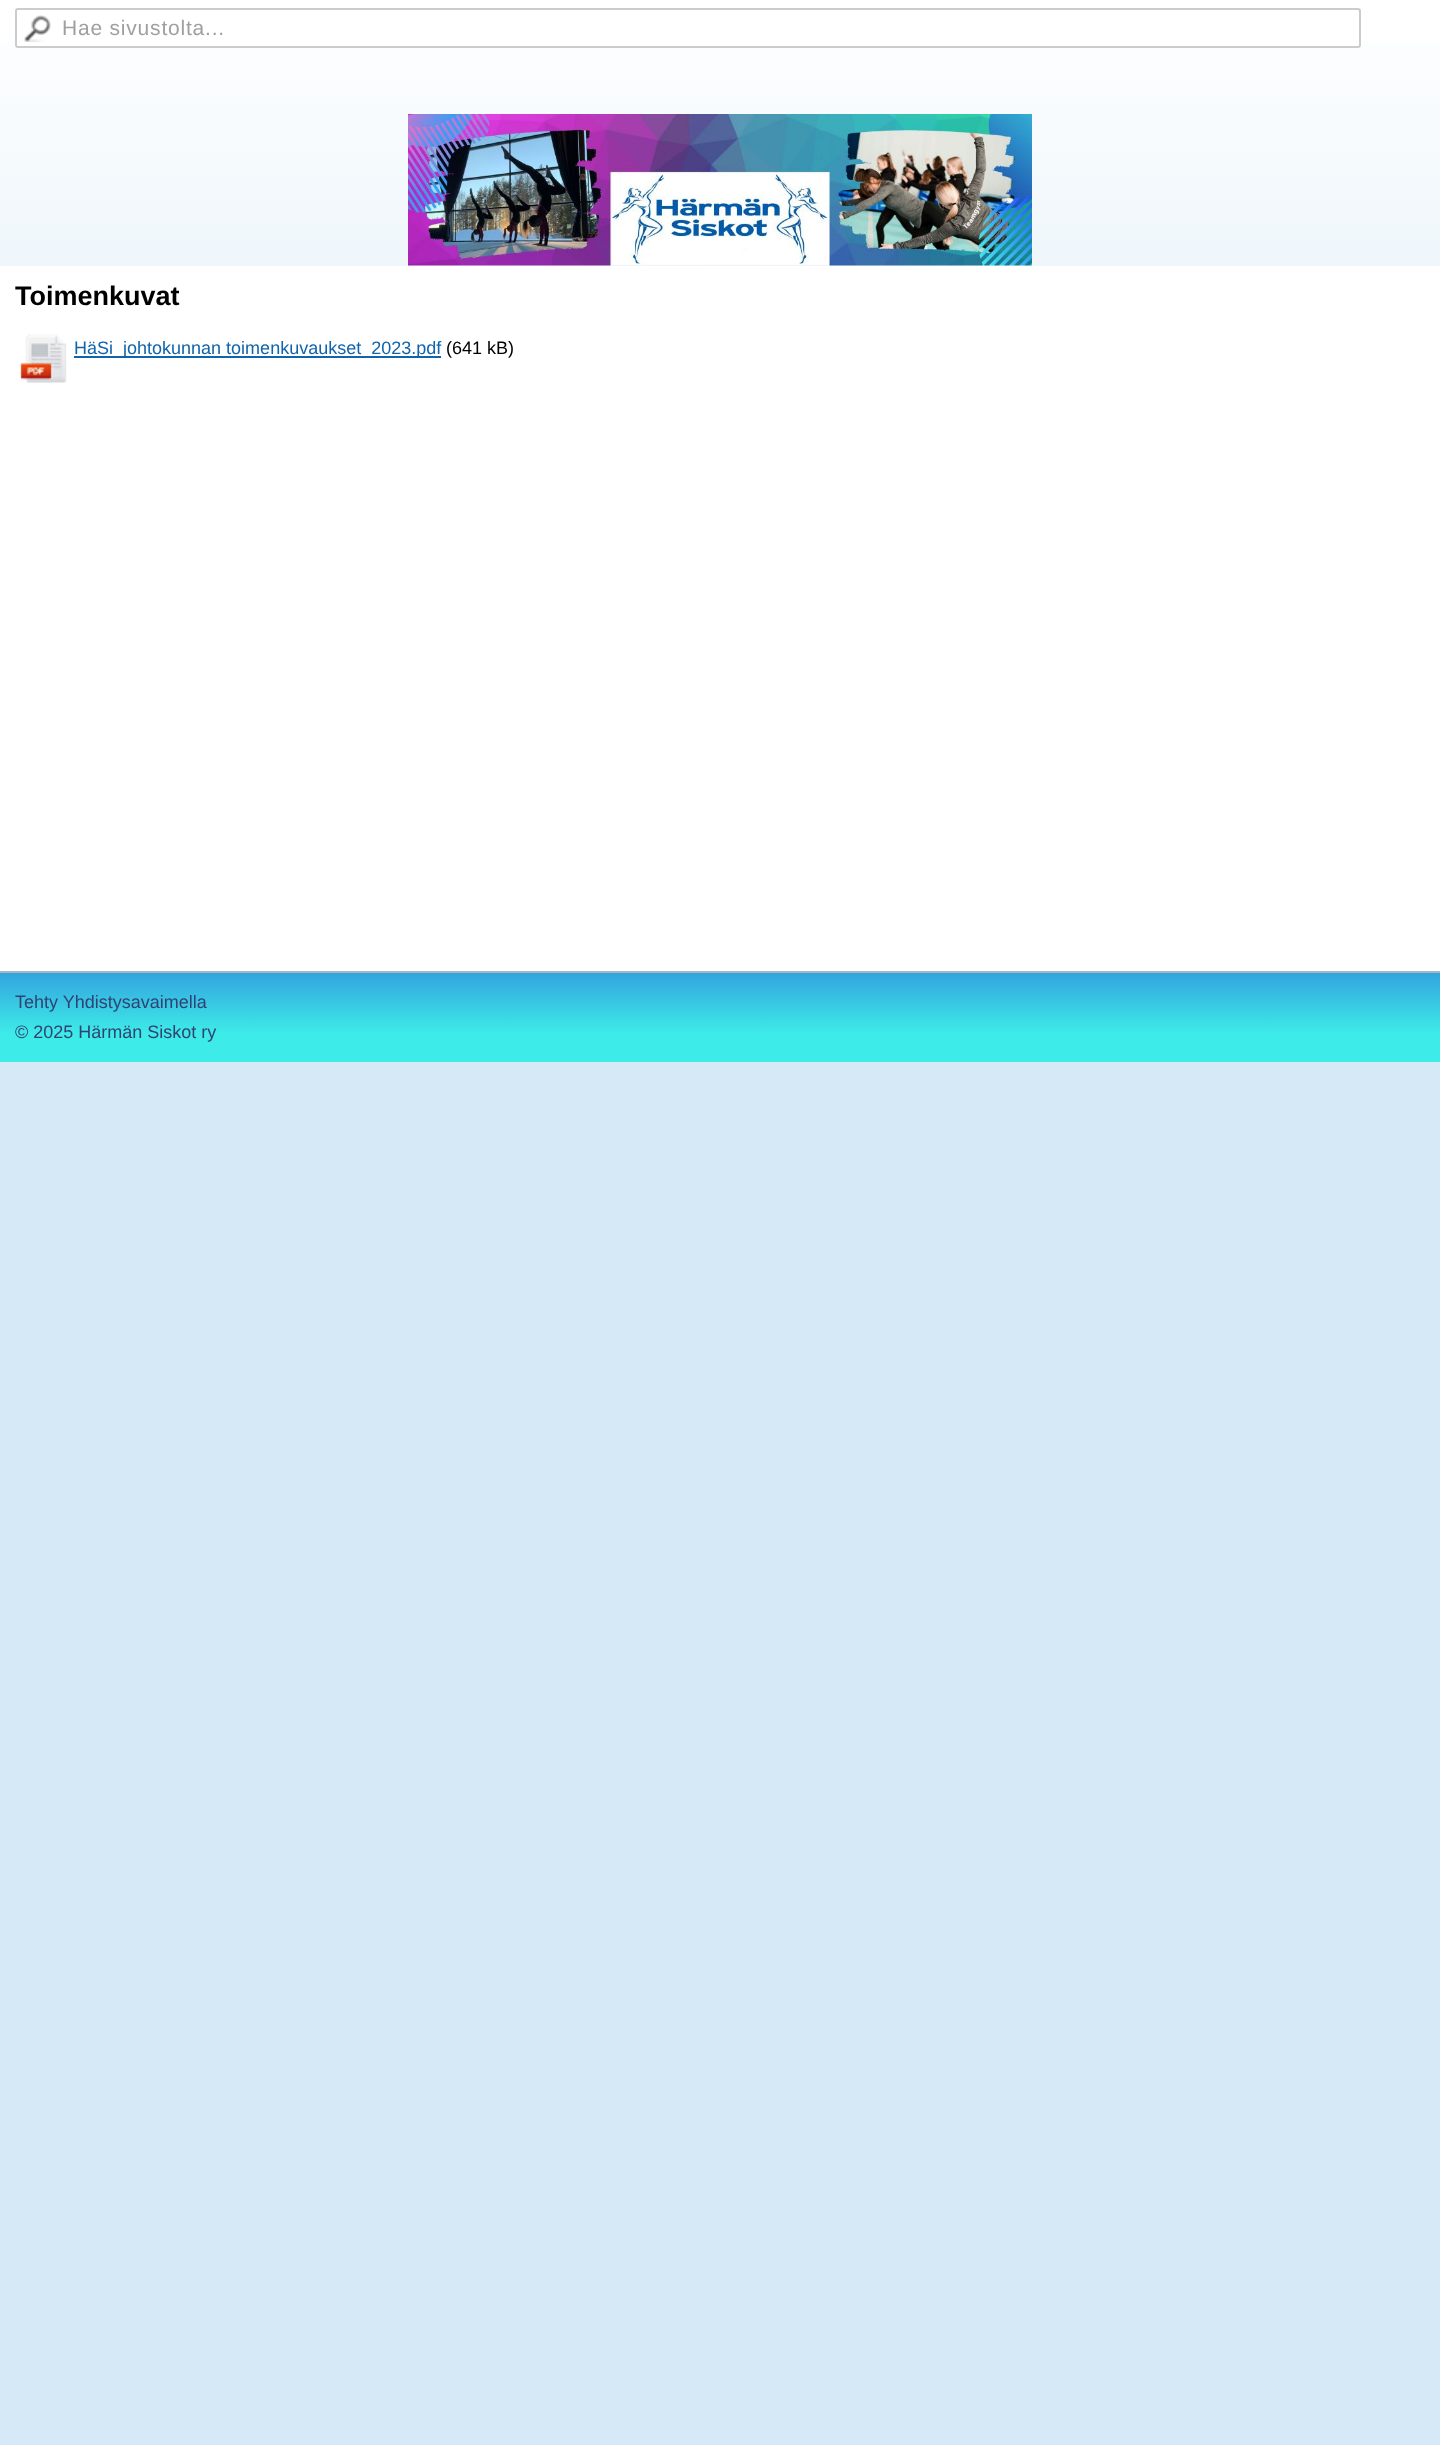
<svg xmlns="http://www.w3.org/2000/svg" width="1440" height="2445">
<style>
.a{font:21px Liberation Sans;letter-spacing:0.8px;fill:#9f9f9f}
.b{font:bold 27px Liberation Sans;fill:#000}
.c{font:18px Liberation Sans;fill:#1064ac}
.d{font:18px Liberation Sans;fill:#000}
.e{font:18px Liberation Sans;fill:#324373}
</style>
<defs>
<linearGradient id="g1" gradientUnits="userSpaceOnUse" x1="720" y1="0" x2="720" y2="2445"><stop offset="0" stop-color="#fff"/><stop offset="0.28" stop-color="#d5e9f6"/><stop offset="1" stop-color="#d5e9f6"/></linearGradient>
<linearGradient id="g2" gradientUnits="userSpaceOnUse" x1="720" y1="972" x2="720" y2="1062"><stop offset="0" stop-color="#32a3de"/><stop offset="0.68" stop-color="#3debe8"/><stop offset="1" stop-color="#3debe8"/></linearGradient>
</defs>
<rect width="100%" height="100%" fill="#fff"/>
<path fill="url(#g1)" d="M0 41h1440v2404H0z"/>
<rect fill="#fff" x="15" y="8" width="1346" height="40" rx="3"/>
<image href="1.png" x="24" y="15" width="27" height="27"/>
<path fill="#e6e6e6" d="M18 10h1340l1 2v-2l-1-1h-1340c0 0-1 1-1 1z"/>
<rect fill="none" stroke="#ccc" stroke-width="2" x="16" y="9" width="1344" height="38" rx="2"/>
<image href="2.png" x="408" y="114" width="624" height="152"/>
<path fill="#fff" d="M0 266h1440v705H0z"/>
<image href="3.png" x="20" y="334" width="47" height="49"/>
<path fill="#1064ac" d="M74 356h367v2H74z"/>
<path fill="url(#g2)" d="M0 973h1440v89H0z"/>
<path fill="#a6b7c2" d="M0 971h1440v2H0z"/>
<text class="a" x="62" y="35">Hae sivustolta...</text>
<text class="b" x="15" y="305">Toimenkuvat</text>
<text class="c" x="74" y="354">HäSi_johtokunnan toimenkuvaukset_2023.pdf</text>
<text class="d" x="446" y="354">(641 kB)</text>
<text class="e" x="15" y="1008">Tehty Yhdistysavaimella</text>
<text class="e" x="15" y="1038">© 2025 Härmän Siskot ry</text>
</svg>
